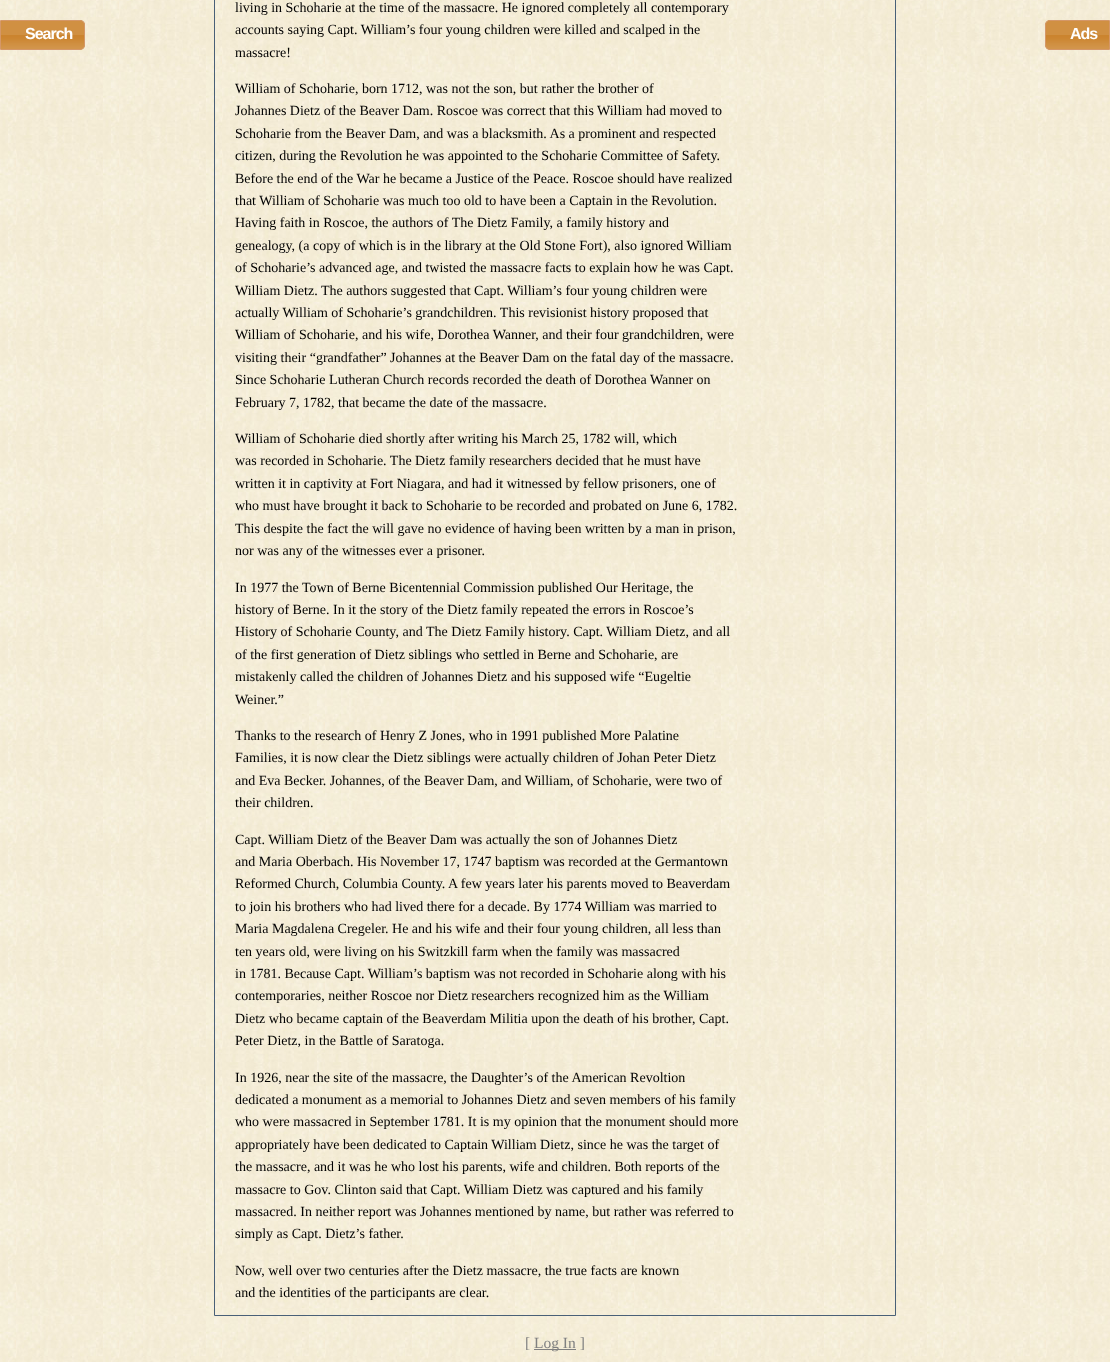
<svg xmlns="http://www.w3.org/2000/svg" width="1110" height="1362">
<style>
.a{font:bold 16px Liberation Sans;letter-spacing:-1px;fill:#fff}
.b{font:14px Liberation Serif;fill:#000}
.c{font:15.5px Liberation Serif;fill:#808080}
</style>
<rect width="100%" height="100%" fill="#fff"/>
<image href="1.png" x="0" y="0" width="1110" height="1362"/>
<image href="2.png" x="1" y="20" width="84" height="30"/>
<path fill="none" stroke="#d49768" d="M.5 20.5h79.5c2.5 0 4.5 2 4.5 4.5v20c0 2.5-2 4.5-4.5 4.5h-79.5z"/>
<path fill="none" stroke="#496077" d="M214.5 -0.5h681v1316H214.5z"/>
<image href="3.png" x="1045" y="20" width="64" height="30"/>
<path fill="none" stroke="#d49768" d="M1050 20.5h59.5v29h-59.5c-2.5 0-4.5-2-4.5-4.5v-20c0-2.5 2-4.5 4.5-4.5z"/>
<path fill="#808080" d="M534 1349h42v1H534z"/>
<text class="a" x="25" y="39">Search</text>
<text class="b" x="235" y="12">living in Schoharie at the time of the massacre. He ignored completely all contemporary</text>
<text class="b" x="235" y="34">accounts saying Capt. William’s four young children were killed and scalped in the</text>
<text class="b" x="235" y="57">massacre!</text>
<text class="b" x="235" y="93">William of Schoharie, born 1712, was not the son, but rather the brother of</text>
<text class="b" x="235" y="115">Johannes Dietz of the Beaver Dam. Roscoe was correct that this William had moved to</text>
<text class="b" x="235" y="138">Schoharie from the Beaver Dam, and was a blacksmith. As a prominent and respected</text>
<text class="b" x="235" y="160">citizen, during the Revolution he was appointed to the Schoharie Committee of Safety.</text>
<text class="b" x="235" y="183">Before the end of the War he became a Justice of the Peace. Roscoe should have realized</text>
<text class="b" x="235" y="205">that William of Schoharie was much too old to have been a Captain in the Revolution.</text>
<text class="b" x="235" y="227">Having faith in Roscoe, the authors of The Dietz Family, a family history and</text>
<text class="b" x="235" y="250">genealogy, (a copy of which is in the library at the Old Stone Fort), also ignored William</text>
<text class="b" x="235" y="272">of Schoharie’s advanced age, and twisted the massacre facts to explain how he was Capt.</text>
<text class="b" x="235" y="295">William Dietz. The authors suggested that Capt. William’s four young children were</text>
<text class="b" x="235" y="317">actually William of Schoharie’s grandchildren. This revisionist history proposed that</text>
<text class="b" x="235" y="339">William of Schoharie, and his wife, Dorothea Wanner, and their four grandchildren, were</text>
<text class="b" x="235" y="362">visiting their “grandfather” Johannes at the Beaver Dam on the fatal day of the massacre.</text>
<text class="b" x="235" y="384">Since Schoharie Lutheran Church records recorded the death of Dorothea Wanner on</text>
<text class="b" x="235" y="407">February 7, 1782, that became the date of the massacre.</text>
<text class="b" x="235" y="443">William of Schoharie died shortly after writing his March 25, 1782 will, which</text>
<text class="b" x="235" y="465">was recorded in Schoharie. The Dietz family researchers decided that he must have</text>
<text class="b" x="235" y="488">written it in captivity at Fort Niagara, and had it witnessed by fellow prisoners, one of</text>
<text class="b" x="235" y="510">who must have brought it back to Schoharie to be recorded and probated on June 6, 1782.</text>
<text class="b" x="235" y="533">This despite the fact the will gave no evidence of having been written by a man in prison,</text>
<text class="b" x="235" y="555">nor was any of the witnesses ever a prisoner.</text>
<text class="b" x="235" y="592">In 1977 the Town of Berne Bicentennial Commission published Our Heritage, the</text>
<text class="b" x="235" y="614">history of Berne. In it the story of the Dietz family repeated the errors in Roscoe’s</text>
<text class="b" x="235" y="636">History of Schoharie County, and The Dietz Family history. Capt. William Dietz, and all</text>
<text class="b" x="235" y="659">of the first generation of Dietz siblings who settled in Berne and Schoharie, are</text>
<text class="b" x="235" y="681">mistakenly called the children of Johannes Dietz and his supposed wife “Eugeltie</text>
<text class="b" x="235" y="704">Weiner.”</text>
<text class="b" x="235" y="740">Thanks to the research of Henry Z Jones, who in 1991 published More Palatine</text>
<text class="b" x="235" y="762">Families, it is now clear the Dietz siblings were actually children of Johan Peter Dietz</text>
<text class="b" x="235" y="785">and Eva Becker. Johannes, of the Beaver Dam, and William, of Schoharie, were two of</text>
<text class="b" x="235" y="807">their children.</text>
<text class="b" x="235" y="844">Capt. William Dietz of the Beaver Dam was actually the son of Johannes Dietz</text>
<text class="b" x="235" y="866">and Maria Oberbach. His November 17, 1747 baptism was recorded at the Germantown</text>
<text class="b" x="235" y="888">Reformed Church, Columbia County. A few years later his parents moved to Beaverdam</text>
<text class="b" x="235" y="911">to join his brothers who had lived there for a decade. By 1774 William was married to</text>
<text class="b" x="235" y="933">Maria Magdalena Cregeler. He and his wife and their four young children, all less than</text>
<text class="b" x="235" y="956">ten years old, were living on his Switzkill farm when the family was massacred</text>
<text class="b" x="235" y="978">in 1781. Because Capt. William’s baptism was not recorded in Schoharie along with his</text>
<text class="b" x="235" y="1000">contemporaries, neither Roscoe nor Dietz researchers recognized him as the William</text>
<text class="b" x="235" y="1023">Dietz who became captain of the Beaverdam Militia upon the death of his brother, Capt.</text>
<text class="b" x="235" y="1045">Peter Dietz, in the Battle of Saratoga.</text>
<text class="b" x="235" y="1082">In 1926, near the site of the massacre, the Daughter’s of the American Revoltion</text>
<text class="b" x="235" y="1104">dedicated a monument as a memorial to Johannes Dietz and seven members of his family</text>
<text class="b" x="235" y="1126">who were massacred in September 1781. It is my opinion that the monument should more</text>
<text class="b" x="235" y="1149">appropriately have been dedicated to Captain William Dietz, since he was the target of</text>
<text class="b" x="235" y="1171">the massacre, and it was he who lost his parents, wife and children. Both reports of the</text>
<text class="b" x="235" y="1194">massacre to Gov. Clinton said that Capt. William Dietz was captured and his family</text>
<text class="b" x="235" y="1216">massacred. In neither report was Johannes mentioned by name, but rather was referred to</text>
<text class="b" x="235" y="1238">simply as Capt. Dietz’s father.</text>
<text class="b" x="235" y="1275">Now, well over two centuries after the Dietz massacre, the true facts are known</text>
<text class="b" x="235" y="1297">and the identities of the participants are clear.</text>
<text class="a" x="1070" y="39">Ads</text>
<text class="c" x="525" y="1348">[</text>
<text class="c" x="534" y="1348">Log In ]</text>
</svg>
